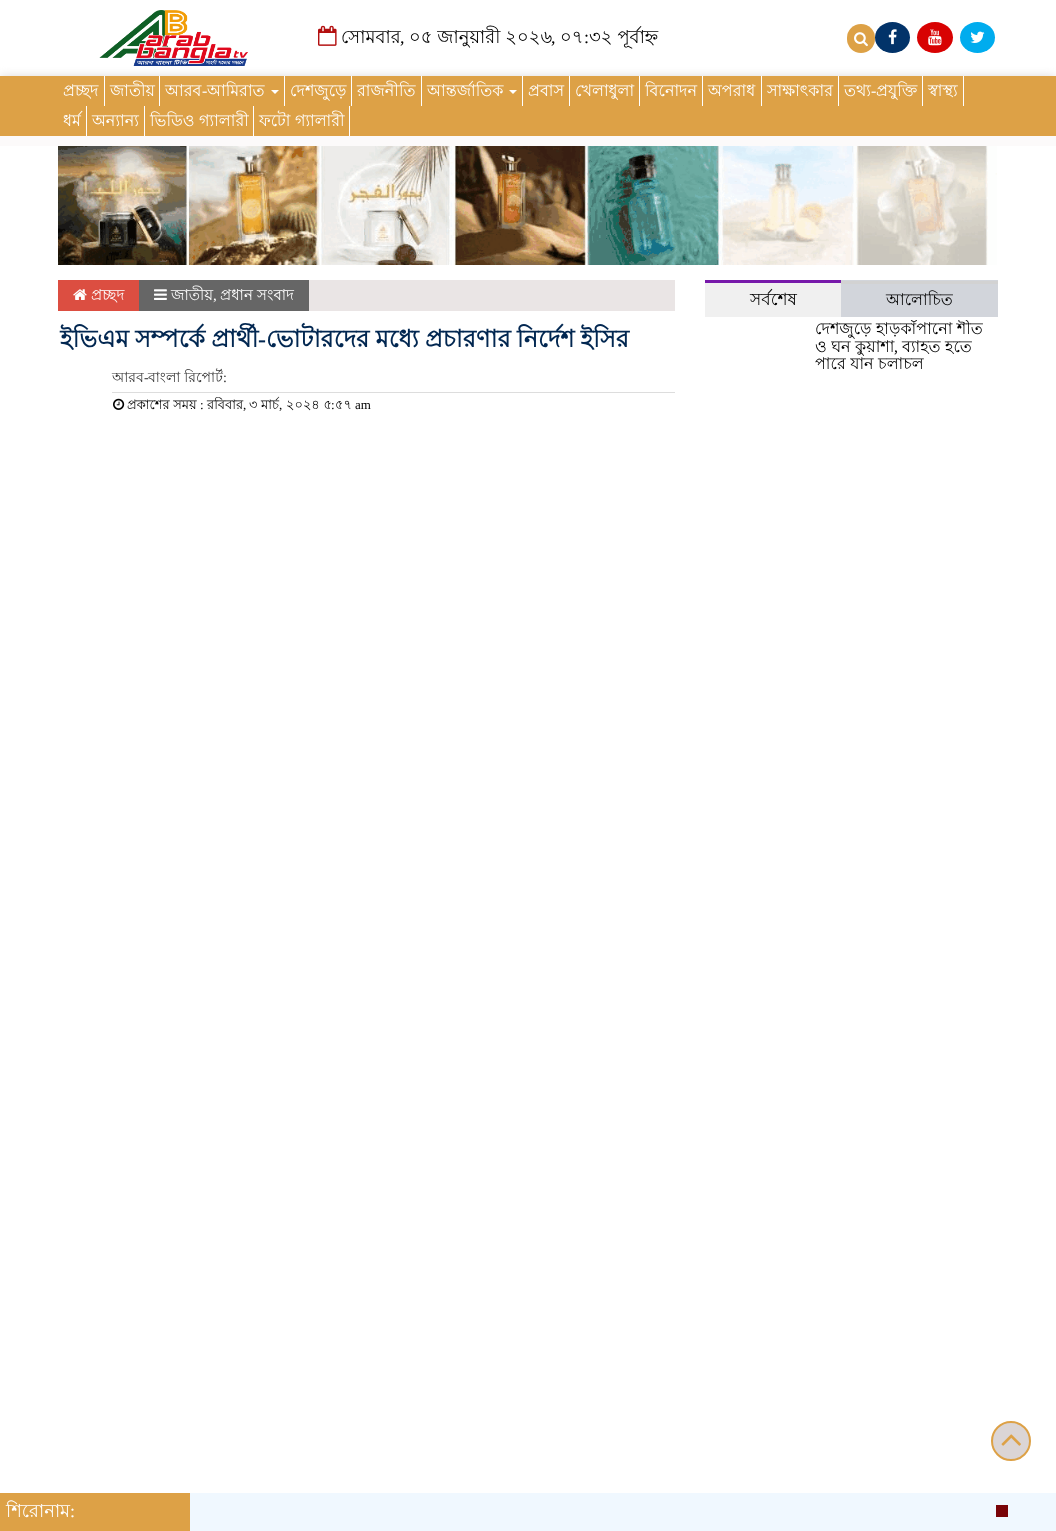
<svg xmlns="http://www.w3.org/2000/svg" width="1056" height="1531">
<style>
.a{font:18px Lohit Bengali;fill:#000}
.b{font:18px Liberation Serif;fill:#000}
.c{font:16px Lohit Bengali;fill:#fff}
.d{font:16px Liberation Serif;fill:#fff}
.e{font:15px Lohit Bengali;fill:#fff}
.f{font:15px Liberation Serif;fill:#fff}
.g{font:bold 24px Lohit Bengali;fill:#022751}
.h{font:bold 24px Liberation Serif;fill:#022751}
.i{font:14px Lohit Bengali;fill:#333}
.j{font:14px Liberation Serif;fill:#333}
.k{font:13px Lohit Bengali;fill:#000}
.l{font:13px Liberation Serif;fill:#000}
.m{font:17px Lohit Bengali;fill:#000}
.n{font:16px Lohit Bengali;fill:#000}
.o{font:16px Liberation Serif;fill:#000}
.p{font:18px Lohit Bengali;fill:#fff}
.q{font:18px Liberation Serif;fill:#fff}
</style>
<defs>
<clipPath id="clip1"><path d="M705 320h293v397H705z"/></clipPath>
</defs>
<rect width="100%" height="100%" fill="#fff"/>
<path fill="#dddbdb" filter="blur(5px)" d="M0 76h1056v60H0z"/>
<image href="1.png" x="99" y="10" width="149" height="56"/>
<image href="2.png" x="318" y="25" width="19" height="21"/>
<rect fill="#dda146" x="847" y="24" width="28" height="29" rx="14"/>
<image href="3.png" x="854" y="32" width="14" height="15"/>
<ellipse fill="#023369" cx="892.5" cy="37.5" rx="17.5" ry="15.5"/>
<image href="4.png" x="888" y="29" width="9" height="16"/>
<ellipse fill="#d80202" cx="935" cy="37.5" rx="18" ry="15.5"/>
<image href="5.png" x="928" y="29" width="14" height="17"/>
<ellipse fill="#00acee" cx="977.5" cy="37.5" rx="17.5" ry="15.5"/>
<image href="6.png" x="970" y="31" width="15" height="12"/>
<path fill="#dda146" d="M0 76h1056v60H0z"/>
<path fill="#fff" d="M104 76h1v30H104z"/>
<path fill="#fff" d="M159 76h1v30H159z"/>
<path fill="#fff" d="M284 76h1v30H284z"/>
<path fill="#fff" d="M271 90h8l-4 4z"/>
<path fill="#fff" d="M351 76h1v30H351z"/>
<path fill="#fff" d="M421 76h1v30H421z"/>
<path fill="#fff" d="M522 76h1v30H522z"/>
<path fill="#fff" d="M509 90h8l-4 4z"/>
<path fill="#fff" d="M569 76h1v30H569z"/>
<path fill="#fff" d="M639 76h1v30H639z"/>
<path fill="#fff" d="M702 76h1v30H702z"/>
<path fill="#fff" d="M761 76h1v30H761z"/>
<path fill="#fff" d="M838 76h1v30H838z"/>
<path fill="#fff" d="M922 76h1v30H922z"/>
<path fill="#fff" d="M963 76h1v30H963z"/>
<path fill="#fff" d="M86 106h1v30H86z"/>
<path fill="#fff" d="M144 106h1v30H144z"/>
<path fill="#fff" d="M253 106h1v30H253z"/>
<path fill="#fff" d="M349 106h1v30H349z"/>
<path fill="#fcfafa" d="M0 136h1056v10H0z"/>
<image href="7.png" x="58" y="146" width="939" height="119"/>
<path fill="#eae5e5" d="M309 280h366v31H309z"/>
<path fill="#dc4e41" d="M58 280h81v31H58z"/>
<image href="8.png" x="73" y="289" width="14" height="11"/>
<path fill="#666" d="M139 280h170v31H139z"/>
<image href="9.png" x="154" y="289" width="13" height="11"/>
<path fill="#ddd" d="M112 392h563v1H112z"/>
<image href="10.png" x="113" y="398" width="12" height="12"/>
<path fill="#d2d5db" d="M841 280h157v37H841z"/>
<path fill="#f0f0f0" d="M705 283h136v34H705z"/>
<path fill="#7719aa" d="M705 280h136v3H705z"/>
<path fill="#d2d2d2" d="M841 281h157v3H841z"/>
<circle fill="#dbd5d5" stroke="#dda146" stroke-width="2" cx="1011" cy="1441" r="19"/>
<image href="11.png" x="1001" y="1434" width="20" height="12"/>
<path fill="#f0f8ff" d="M190 1493h866v38H190z"/>
<path fill="#dda146" d="M0 1493h190v38H0z"/>
<path fill="#790408" d="M996 1505h12v12H996z"/>
<text class="a" x="341" y="43">সোমবার</text>
<text class="b" x="400" y="43">,</text>
<text class="a" x="409" y="43">০৫ জানুয়ারী ২০২৬</text>
<text class="b" x="551" y="43">,</text>
<text class="a" x="560" y="43">০৭</text>
<text class="b" x="584" y="43">:</text>
<text class="a" x="589" y="43">৩২ পূর্বাহ্ন</text>
<text class="c" x="63" y="96">প্রচ্ছদ</text>
<text class="c" x="110" y="96">জাতীয়</text>
<text class="c" x="165" y="96">আরব</text>
<text class="d" x="202" y="96">-</text>
<text class="c" x="207" y="96">আমিরাত</text>
<text class="c" x="290" y="96">দেশজুড়ে</text>
<text class="c" x="357" y="96">রাজনীতি</text>
<text class="c" x="427" y="96">আন্তর্জাতিক</text>
<text class="c" x="528" y="96">প্রবাস</text>
<text class="c" x="575" y="96">খেলাধুলা</text>
<text class="c" x="645" y="96">বিনোদন</text>
<text class="c" x="708" y="96">অপরাধ</text>
<text class="c" x="767" y="96">সাক্ষাৎকার</text>
<text class="c" x="844" y="96">তথ্য</text>
<text class="d" x="871" y="96">-</text>
<text class="c" x="876" y="96">প্রযুক্তি</text>
<text class="c" x="928" y="96">স্বাস্থ্য</text>
<text class="c" x="63" y="126">ধর্ম</text>
<text class="c" x="92" y="126">অন্যান্য</text>
<text class="c" x="150" y="126">ভিডিও গ্যালারী</text>
<text class="c" x="259" y="126">ফটো গ্যালারী</text>
<text class="e" x="91" y="300">প্রচ্ছদ</text>
<text class="e" x="171" y="300">জাতীয়</text>
<text class="f" x="213" y="300">,</text>
<text class="e" x="220" y="300">প্রধান সংবাদ</text>
<text class="g" x="60" y="347" word-spacing="-0.5">ইভিএম সম্পর্কে প্রার্থী</text>
<text class="h" x="258" y="347">-</text>
<text class="g" x="266" y="347" word-spacing="-0.5">ভোটারদের মধ্যে প্রচারণার নির্দেশ ইসির</text>
<text class="i" x="112" y="382">আরব</text>
<text class="j" x="144" y="382">-</text>
<text class="i" x="148" y="382">বাংলা রিপোর্ট</text>
<text class="j" x="223" y="382">:</text>
<text class="k" x="127" y="409">প্রকাশের সময়</text>
<text class="l" x="200" y="409">:</text>
<text class="k" x="207" y="409">রবিবার</text>
<text class="l" x="243" y="409">,</text>
<text class="k" x="249" y="409">৩ মার্চ</text>
<text class="l" x="279" y="409">,</text>
<text class="k" x="286" y="409">২০২৪ ৫</text>
<text class="l" x="331" y="409">:</text>
<text class="k" x="335" y="409">৫৭</text>
<text class="l" x="355" y="409">am</text>
<text class="m" x="750" y="305">সর্বশেষ</text>
<text class="n" x="886" y="305">আলোচিত</text>
<g clip-path="url(#clip1)">
<text class="n" x="815" y="334">দেশজুড়ে হাড়কাঁপানো শীত</text>
</g>
<text class="n" x="815" y="352">ও ঘন কুয়াশা</text>
<text class="o" x="894" y="352">,</text>
<text class="n" x="902" y="352">ব্যাহত হতে</text>
<text class="n" x="815" y="369">পারে যান চলাচল</text>
<text class="p" x="6" y="1517">শিরোনাম</text>
<text class="q" x="70" y="1517">:</text>
</svg>
